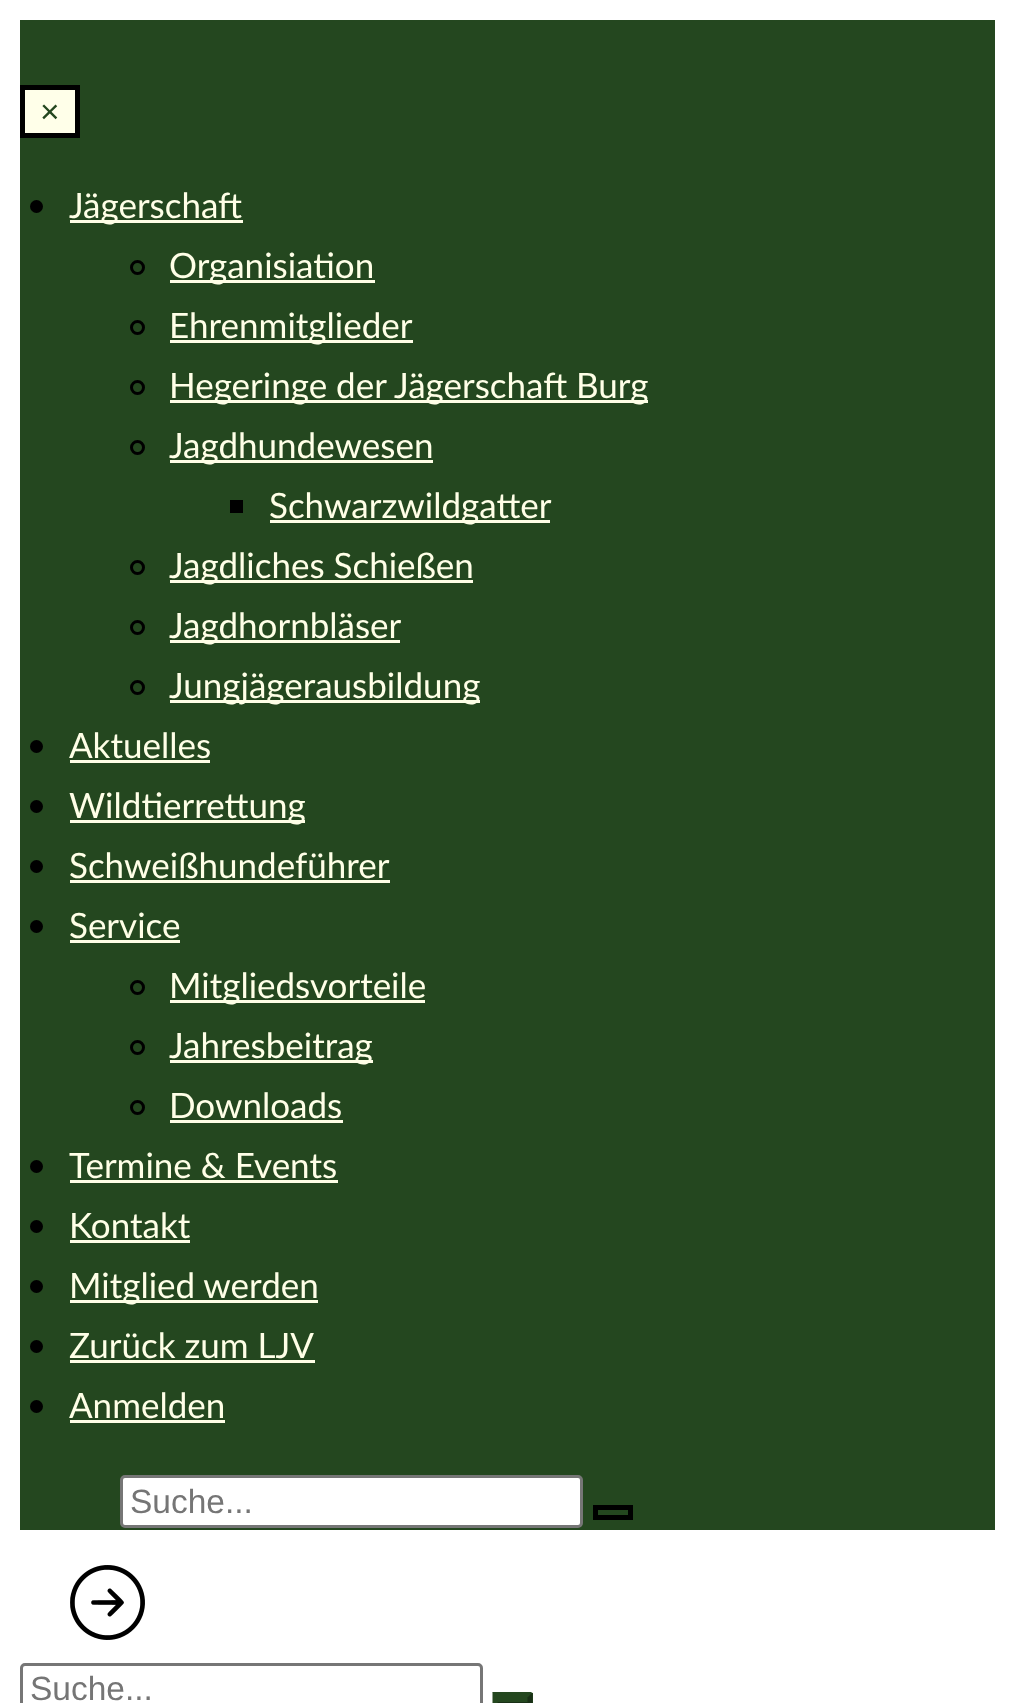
<svg xmlns="http://www.w3.org/2000/svg" width="1013" height="1703">
<style>
.a{font:33.5px Liberation Sans;fill:#24471f}
.b{font:35px Lato;fill:#ffffe7}
.c{font:33.5px Liberation Sans;fill:#757575}
</style>
<rect width="100%" height="100%" fill="#fff"/>
<path fill="#24471f" d="M20 20h975v1510H20z"/>
<path fill="#ffffe9" stroke="#000" stroke-width="5" d="M22.5 87.5h55v48H22.5z"/>
<circle fill="#000" cx="36.5" cy="206.5" r="6.5"/>
<path fill="#ffffe7" d="M70 220h173v3H70z"/>
<circle fill="none" stroke="#000" stroke-width="3" cx="137.5" cy="267.5" r="6"/>
<path fill="#ffffe7" d="M170 280h205v3H170z"/>
<circle fill="none" stroke="#000" stroke-width="3" cx="137.5" cy="327.5" r="6"/>
<path fill="#ffffe7" d="M170 340h243v3H170z"/>
<circle fill="none" stroke="#000" stroke-width="3" cx="137.5" cy="387.5" r="6"/>
<path fill="#ffffe7" d="M170 400h478v3H170z"/>
<circle fill="none" stroke="#000" stroke-width="3" cx="137.5" cy="447.5" r="6"/>
<path fill="#ffffe7" d="M170 460h263v3H170z"/>
<path fill="#000" d="M230 500h13v13H230z"/>
<path fill="#ffffe7" d="M270 520h280v3H270z"/>
<circle fill="none" stroke="#000" stroke-width="3" cx="137.5" cy="567.5" r="6"/>
<path fill="#ffffe7" d="M170 580h303v3H170z"/>
<circle fill="none" stroke="#000" stroke-width="3" cx="137.5" cy="627.5" r="6"/>
<path fill="#ffffe7" d="M170 640h230v3H170z"/>
<circle fill="none" stroke="#000" stroke-width="3" cx="137.5" cy="687.5" r="6"/>
<path fill="#ffffe7" d="M170 700h310v3H170z"/>
<circle fill="#000" cx="36.5" cy="746.5" r="6.5"/>
<path fill="#ffffe7" d="M70 760h140v3H70z"/>
<circle fill="#000" cx="36.5" cy="806.5" r="6.5"/>
<path fill="#ffffe7" d="M70 820h235v3H70z"/>
<circle fill="#000" cx="36.5" cy="866.5" r="6.5"/>
<path fill="#ffffe7" d="M70 880h320v3H70z"/>
<circle fill="#000" cx="36.5" cy="926.5" r="6.5"/>
<path fill="#ffffe7" d="M70 940h110v3H70z"/>
<circle fill="none" stroke="#000" stroke-width="3" cx="137.5" cy="987.5" r="6"/>
<path fill="#ffffe7" d="M170 1000h255v3H170z"/>
<circle fill="none" stroke="#000" stroke-width="3" cx="137.5" cy="1047.5" r="6"/>
<path fill="#ffffe7" d="M170 1060h203v3H170z"/>
<circle fill="none" stroke="#000" stroke-width="3" cx="137.5" cy="1107.5" r="6"/>
<path fill="#ffffe7" d="M170 1120h173v3H170z"/>
<circle fill="#000" cx="36.5" cy="1166.5" r="6.5"/>
<path fill="#ffffe7" d="M70 1180h268v3H70z"/>
<circle fill="#000" cx="36.5" cy="1226.5" r="6.5"/>
<path fill="#ffffe7" d="M70 1240h120v3H70z"/>
<circle fill="#000" cx="36.5" cy="1286.5" r="6.5"/>
<path fill="#ffffe7" d="M70 1300h248v3H70z"/>
<circle fill="#000" cx="36.5" cy="1346.5" r="6.5"/>
<path fill="#ffffe7" d="M70 1360h245v3H70z"/>
<circle fill="#000" cx="36.5" cy="1406.5" r="6.5"/>
<path fill="#ffffe7" d="M70 1420h155v3H70z"/>
<rect fill="#fff" stroke="#767676" stroke-width="3" x="121.5" y="1476.5" width="460" height="50" rx="3.5"/>
<path fill="none" stroke="#000" stroke-width="5" d="M595.5 1507.5h35v10H595.5z"/>
<image href="1.png" x="70" y="1565" width="75" height="75"/>
<rect fill="none" stroke="#767676" stroke-width="3" x="21.5" y="1664.5" width="460" height="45" rx="3.5"/>
<path fill="#24471f" d="M493 1693h40v10H493z"/>
<path fill="#24471f" d="M492 1692h40l-4 6h-30z"/>
<path fill="#182f15" d="M532.5 1692.5v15l-5-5v-5z"/>
<path fill="#182f15" d="M532 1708h-40l6-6h30z"/>
<path fill="#24471f" d="M492.5 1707.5v-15l5 5v5z"/>
<text class="a" x="40" y="123">×</text>
<text class="b" x="69" y="218">Jägerschaft</text>
<text class="b" x="169" y="278">Organisiation</text>
<text class="b" x="169" y="338">Ehrenmitglieder</text>
<text class="b" x="169" y="398">Hegeringe der Jägerschaft Burg</text>
<text class="b" x="169" y="458">Jagdhundewesen</text>
<text class="b" x="269" y="518">Schwarzwildgatter</text>
<text class="b" x="169" y="578">Jagdliches Schießen</text>
<text class="b" x="169" y="638">Jagdhornbläser</text>
<text class="b" x="169" y="698">Jungjägerausbildung</text>
<text class="b" x="69" y="758">Aktuelles</text>
<text class="b" x="69" y="818">Wildtierrettung</text>
<text class="b" x="69" y="878">Schweißhundeführer</text>
<text class="b" x="69" y="938">Service</text>
<text class="b" x="169" y="998">Mitgliedsvorteile</text>
<text class="b" x="169" y="1058">Jahresbeitrag</text>
<text class="b" x="169" y="1118">Downloads</text>
<text class="b" x="69" y="1178">Termine &amp; Events</text>
<text class="b" x="69" y="1238">Kontakt</text>
<text class="b" x="69" y="1298">Mitglied werden</text>
<text class="b" x="69" y="1358">Zurück zum LJV</text>
<text class="b" x="69" y="1418">Anmelden</text>
<text class="c" x="130" y="1513">Suche...</text>
<text class="c" x="30" y="1700">Suche...</text>
</svg>
